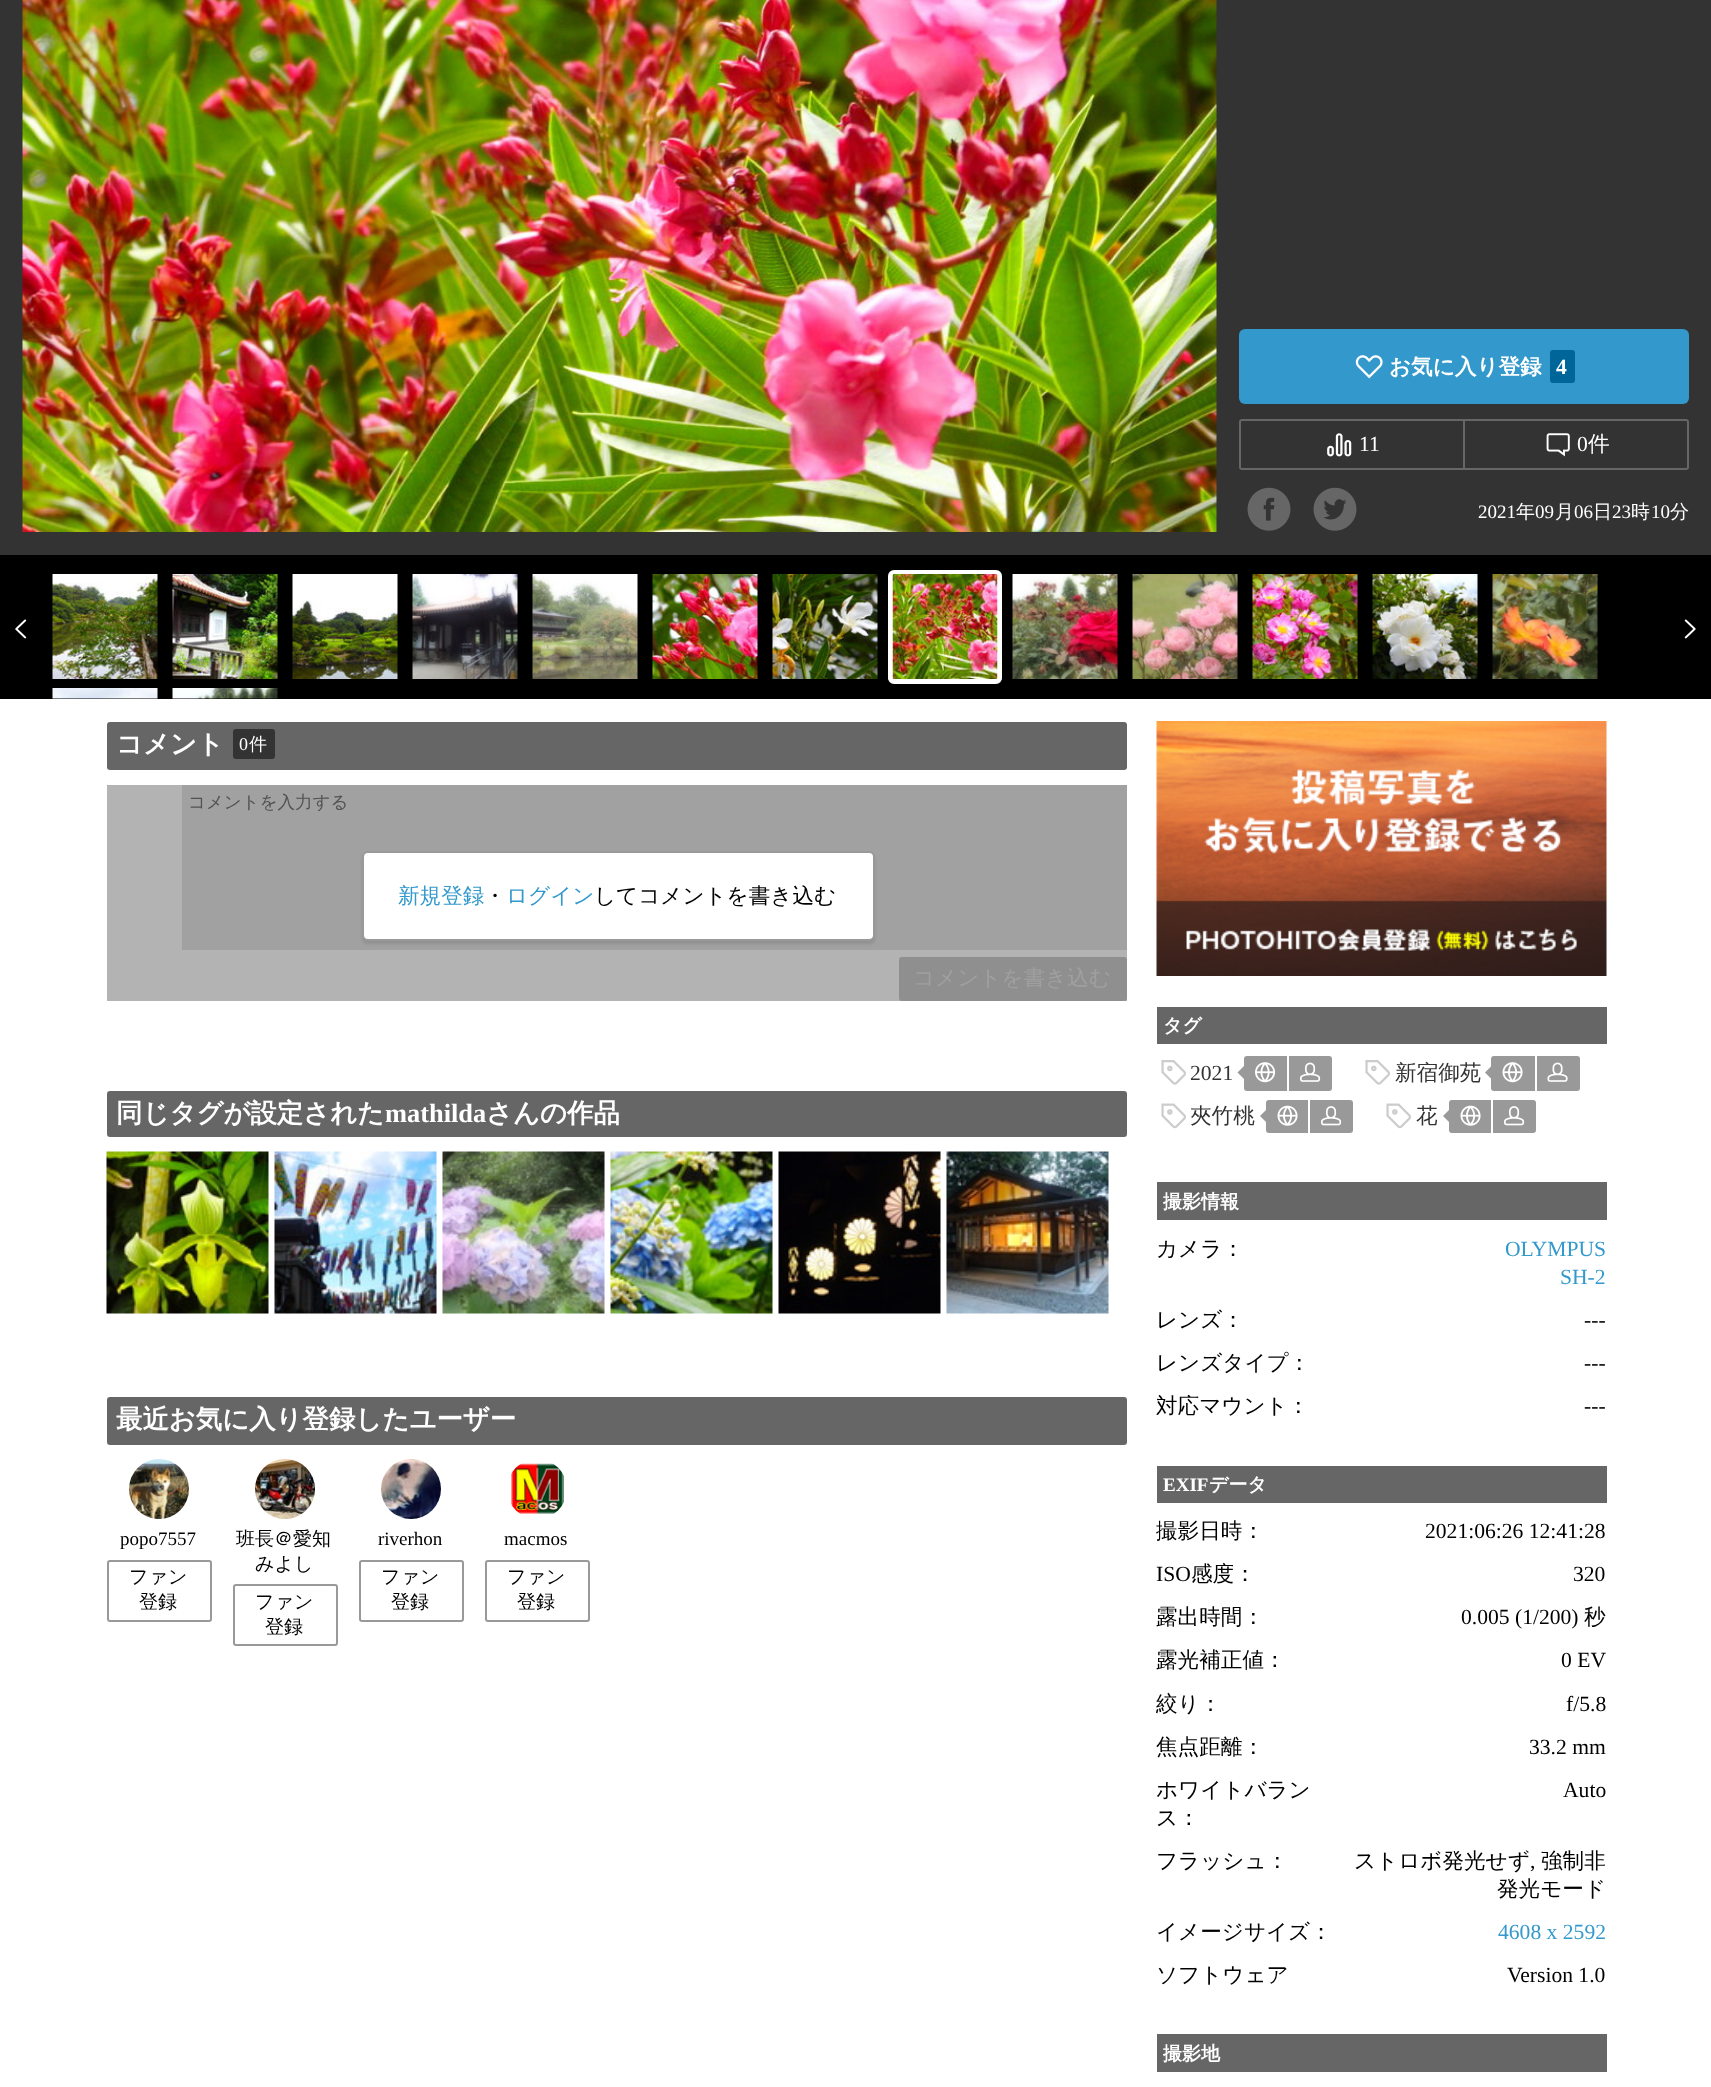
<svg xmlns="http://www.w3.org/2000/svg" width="1711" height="2087">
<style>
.a{font:bold 21.6px WenQuanYi Zen Hei;fill:#fff}
.b{font:bold 21.6px Liberation Serif;fill:#fff}
.c{font:21.6px Liberation Serif;fill:#fff}
.d{font:500 21.6px WenQuanYi Zen Hei;fill:#fff}
.e{font:19px Liberation Serif;fill:#fff}
.f{font:500 19px WenQuanYi Zen Hei;fill:#fff}
.g{font:bold 26.4px WenQuanYi Zen Hei;fill:#fff}
.h{font:18px Liberation Serif;fill:#fff}
.i{font:500 18px WenQuanYi Zen Hei;fill:#fff}
.j{font:500 17.5px WenQuanYi Zen Hei;fill:#525252}
.k{font:500 21.6px WenQuanYi Zen Hei;fill:#39c}
.l{font:500 21.6px WenQuanYi Zen Hei;fill:#000}
.m{font:500 21.6px WenQuanYi Zen Hei;fill:#a0a0a0}
.n{font:bold 26.4px Liberation Serif;fill:#fff}
.o{font:19px Liberation Serif;fill:#000}
.p{font:500 19px WenQuanYi Zen Hei;fill:#000}
.q{font:bold 19px WenQuanYi Zen Hei;fill:#fff}
.r{font:21.6px Liberation Serif;fill:#333}
.s{font:500 21.6px WenQuanYi Zen Hei;fill:#333}
.t{font:21.6px Liberation Serif;fill:#39c}
.u{font:21.6px Liberation Serif;fill:#000}
.v{font:bold 19px Liberation Serif;fill:#fff}
</style>
<rect width="100%" height="100%" fill="#fff"/>
<path fill="#b3b3b3" d="M107 785h1020v216H107z"/>
<path fill="#333" d="M0 0h1711v555H0z"/>
<image href="1.png" x="22" y="0" width="1195" height="532"/>
<rect fill="#39c" x="1239" y="329" width="450" height="75" rx="6"/>
<image href="2.png" x="1355" y="355" width="28" height="24"/>
<rect fill="#069" x="1550" y="350" width="25" height="33" rx="3"/>
<rect fill="none" stroke="#666" stroke-width="2" x="1240" y="420" width="448" height="49" rx="2"/>
<image href="3.png" x="1327" y="433" width="25" height="24"/>
<path fill="#666" d="M1463 420h2v48H1463z"/>
<image href="4.png" x="1546" y="433" width="24" height="24"/>
<image href="5.png" x="1247" y="487" width="44" height="44"/>
<image href="6.png" x="1313" y="487" width="44" height="44"/>
<path fill="#000" d="M0 555h1711v144H0z"/>
<image href="7.png" x="15" y="619" width="12" height="20"/>
<image href="8.png" x="52" y="574" width="106" height="105"/>
<image href="9.png" x="172" y="574" width="106" height="105"/>
<image href="10.png" x="292" y="574" width="106" height="105"/>
<image href="11.png" x="412" y="574" width="106" height="105"/>
<image href="12.png" x="532" y="574" width="106" height="105"/>
<image href="13.png" x="652" y="574" width="106" height="105"/>
<image href="14.png" x="772" y="574" width="106" height="105"/>
<rect fill="none" stroke="#fff" stroke-width="5" x="890.5" y="572.5" width="109" height="109" rx="3.5"/>
<image href="15.png" x="892" y="574" width="106" height="105"/>
<image href="16.png" x="1012" y="574" width="106" height="105"/>
<image href="17.png" x="1132" y="574" width="106" height="105"/>
<image href="18.png" x="1252" y="574" width="106" height="105"/>
<image href="19.png" x="1372" y="574" width="106" height="105"/>
<image href="20.png" x="1492" y="574" width="106" height="105"/>
<image href="21.png" x="52" y="688" width="106" height="11"/>
<image href="22.png" x="172" y="688" width="106" height="11"/>
<image href="23.png" x="1684" y="619" width="12" height="20"/>
<rect fill="#666" x="107" y="722" width="1020" height="48" rx="3"/>
<rect fill="#333" x="233" y="729" width="42" height="30" rx="3"/>
<path fill="#a1a1a1" d="M182 785h945v165H182z"/>
<rect fill="#0000001a" filter="blur(1.5px)" x="362" y="854" width="513" height="90" rx="6"/>
<rect fill="#fff" stroke="#999" stroke-width="2" x="363" y="852" width="511" height="88" rx="5"/>
<rect fill="#8f8f8f" x="899" y="957" width="228" height="44" rx="3"/>
<rect fill="#666" x="107" y="1091" width="1020" height="46" rx="3"/>
<image href="24.png" x="106" y="1151" width="163" height="163"/>
<image href="25.png" x="274" y="1151" width="163" height="163"/>
<image href="26.png" x="442" y="1151" width="163" height="163"/>
<image href="27.png" x="610" y="1151" width="163" height="163"/>
<image href="28.png" x="778" y="1151" width="163" height="163"/>
<image href="29.png" x="946" y="1151" width="163" height="163"/>
<rect fill="#666" x="107" y="1397" width="1020" height="48" rx="3"/>
<image href="30.png" x="129" y="1459" width="60" height="60"/>
<rect fill="none" stroke="#999" stroke-width="2" x="108" y="1561" width="103" height="60" rx="2"/>
<image href="31.png" x="255" y="1459" width="60" height="60"/>
<rect fill="none" stroke="#999" stroke-width="2" x="234" y="1585" width="103" height="60" rx="2"/>
<image href="32.png" x="381" y="1459" width="60" height="60"/>
<rect fill="none" stroke="#999" stroke-width="2" x="360" y="1561" width="103" height="60" rx="2"/>
<image href="33.png" x="511" y="1463" width="53" height="51"/>
<rect fill="none" stroke="#999" stroke-width="2" x="486" y="1561" width="103" height="60" rx="2"/>
<image href="34.png" x="1156" y="721" width="451" height="255"/>
<path fill="#666" d="M1157 1007h450v37H1157z"/>
<image href="35.png" x="1161" y="1060" width="25" height="25"/>
<rect fill="#999" x="1244" y="1056" width="88" height="35" rx="3"/>
<path fill="#999" d="M1245 1065v15l-7.5-7.5z"/>
<image href="36.png" x="1255" y="1062" width="21" height="21"/>
<path fill="#fff" d="M1287 1056h2v35H1287z"/>
<image href="37.png" x="1300" y="1062" width="21" height="20"/>
<image href="35.png" x="1365" y="1060" width="25" height="25"/>
<rect fill="#999" x="1491" y="1056" width="89" height="35" rx="3"/>
<path fill="#999" d="M1492.5 1065v15l-7.5-7.5z"/>
<image href="38.png" x="1502" y="1062" width="21" height="21"/>
<path fill="#fff" d="M1535 1056h2v35H1535z"/>
<image href="39.png" x="1547" y="1062" width="21" height="20"/>
<image href="40.png" x="1161" y="1103" width="25" height="26"/>
<rect fill="#999" x="1266" y="1100" width="87" height="33" rx="3"/>
<path fill="#999" d="M1267.5 1108.5v15l-7.5-7.5z"/>
<image href="41.png" x="1277" y="1105" width="21" height="21"/>
<path fill="#fff" d="M1308 1100h2v33H1308z"/>
<image href="42.png" x="1321" y="1106" width="21" height="20"/>
<image href="40.png" x="1386" y="1103" width="25" height="26"/>
<rect fill="#999" x="1449" y="1100" width="87" height="33" rx="3"/>
<path fill="#999" d="M1450.5 1108.5v15l-7.5-7.5z"/>
<image href="41.png" x="1460" y="1105" width="21" height="21"/>
<path fill="#fff" d="M1491 1100h2v33H1491z"/>
<image href="42.png" x="1504" y="1106" width="21" height="20"/>
<path fill="#666" d="M1157 1182h450v38H1157z"/>
<path fill="#666" d="M1157 1466h450v37H1157z"/>
<path fill="#666" d="M1157 2034h450v38H1157z"/>
<text class="a" x="1389" y="374">お気に入り登録</text>
<text class="b" x="1556" y="374">4</text>
<text class="c" x="1359" y="451">11</text>
<text class="c" x="1577" y="451">0</text>
<text class="d" x="1588" y="451">件</text>
<text class="e" x="1478" y="518">2021</text>
<text class="f" x="1516" y="518">年</text>
<text class="e" x="1535" y="518">09</text>
<text class="f" x="1555" y="518">月</text>
<text class="e" x="1574" y="518">06</text>
<text class="f" x="1593" y="518">日</text>
<text class="e" x="1612" y="518">23</text>
<text class="f" x="1631" y="518">時</text>
<text class="e" x="1651" y="518">10</text>
<text class="f" x="1670" y="518">分</text>
<text class="g" x="116" y="753">コメント</text>
<text class="h" x="239" y="750">0</text>
<text class="i" x="249" y="750">件</text>
<text class="j" x="188" y="808">コメントを入力する</text>
<text class="k" x="398" y="903">新規登録</text>
<text class="l" x="484" y="903">・</text>
<text class="k" x="506" y="903">ログイン</text>
<text class="l" x="594" y="903">してコメントを書き込む</text>
<text class="m" x="913" y="985">コメントを書き込む</text>
<text class="g" x="116" y="1122">同じタグが設定された</text>
<text class="n" x="385" y="1122">mathilda</text>
<text class="g" x="486" y="1122">さんの作品</text>
<text class="g" x="116" y="1428">最近お気に入り登録したユーザー</text>
<text class="o" x="120" y="1545">popo7557</text>
<text class="p" x="129" y="1583">ファン</text>
<text class="p" x="139" y="1608">登録</text>
<text class="p" x="236" y="1545">班長＠愛知</text>
<text class="p" x="255" y="1570">みよし</text>
<text class="p" x="255" y="1608">ファン</text>
<text class="p" x="265" y="1633">登録</text>
<text class="o" x="378" y="1545">riverhon</text>
<text class="p" x="381" y="1583">ファン</text>
<text class="p" x="391" y="1608">登録</text>
<text class="o" x="504" y="1545">macmos</text>
<text class="p" x="507" y="1583">ファン</text>
<text class="p" x="517" y="1608">登録</text>
<text class="q" x="1163" y="1032">タグ</text>
<text class="r" x="1190" y="1080">2021</text>
<text class="s" x="1395" y="1080">新宿御苑</text>
<text class="s" x="1190" y="1123">夾竹桃</text>
<text class="s" x="1416" y="1123">花</text>
<text class="q" x="1163" y="1208">撮影情報</text>
<text class="l" x="1156" y="1256">カメラ：</text>
<text class="t" x="1505" y="1256">OLYMPUS</text>
<text class="t" x="1560" y="1284">SH-2</text>
<text class="l" x="1156" y="1327">レンズ：</text>
<text class="u" x="1584" y="1327">---</text>
<text class="l" x="1156" y="1370">レンズタイプ：</text>
<text class="u" x="1584" y="1370">---</text>
<text class="l" x="1156" y="1413">対応マウント：</text>
<text class="u" x="1584" y="1413">---</text>
<text class="v" x="1163" y="1491">EXIF</text>
<text class="q" x="1209" y="1491">データ</text>
<text class="l" x="1156" y="1538">撮影日時：</text>
<text class="u" x="1425" y="1538">2021:06:26 12:41:28</text>
<text class="u" x="1156" y="1581">ISO</text>
<text class="l" x="1191" y="1581">感度：</text>
<text class="u" x="1573" y="1581">320</text>
<text class="l" x="1156" y="1624">露出時間：</text>
<text class="u" x="1461" y="1624">0.005 (1/200)</text>
<text class="l" x="1584" y="1624">秒</text>
<text class="l" x="1156" y="1667">露光補正値：</text>
<text class="u" x="1561" y="1667">0 EV</text>
<text class="l" x="1156" y="1711">絞り：</text>
<text class="u" x="1566" y="1711">f/5.8</text>
<text class="l" x="1156" y="1754">焦点距離：</text>
<text class="u" x="1529" y="1754">33.2 mm</text>
<text class="l" x="1156" y="1797">ホワイトバラン</text>
<text class="l" x="1156" y="1825">ス：</text>
<text class="u" x="1563" y="1797">Auto</text>
<text class="l" x="1156" y="1868">フラッシュ：</text>
<text class="l" x="1354" y="1868">ストロボ発光せず</text>
<text class="u" x="1530" y="1868">,</text>
<text class="l" x="1541" y="1868">強制非</text>
<text class="l" x="1497" y="1896">発光モード</text>
<text class="l" x="1156" y="1939">イメージサイズ：</text>
<text class="t" x="1498" y="1939">4608 x 2592</text>
<text class="l" x="1156" y="1982">ソフトウェア</text>
<text class="u" x="1507" y="1982">Version 1.0</text>
<text class="q" x="1163" y="2060">撮影地</text>
</svg>
